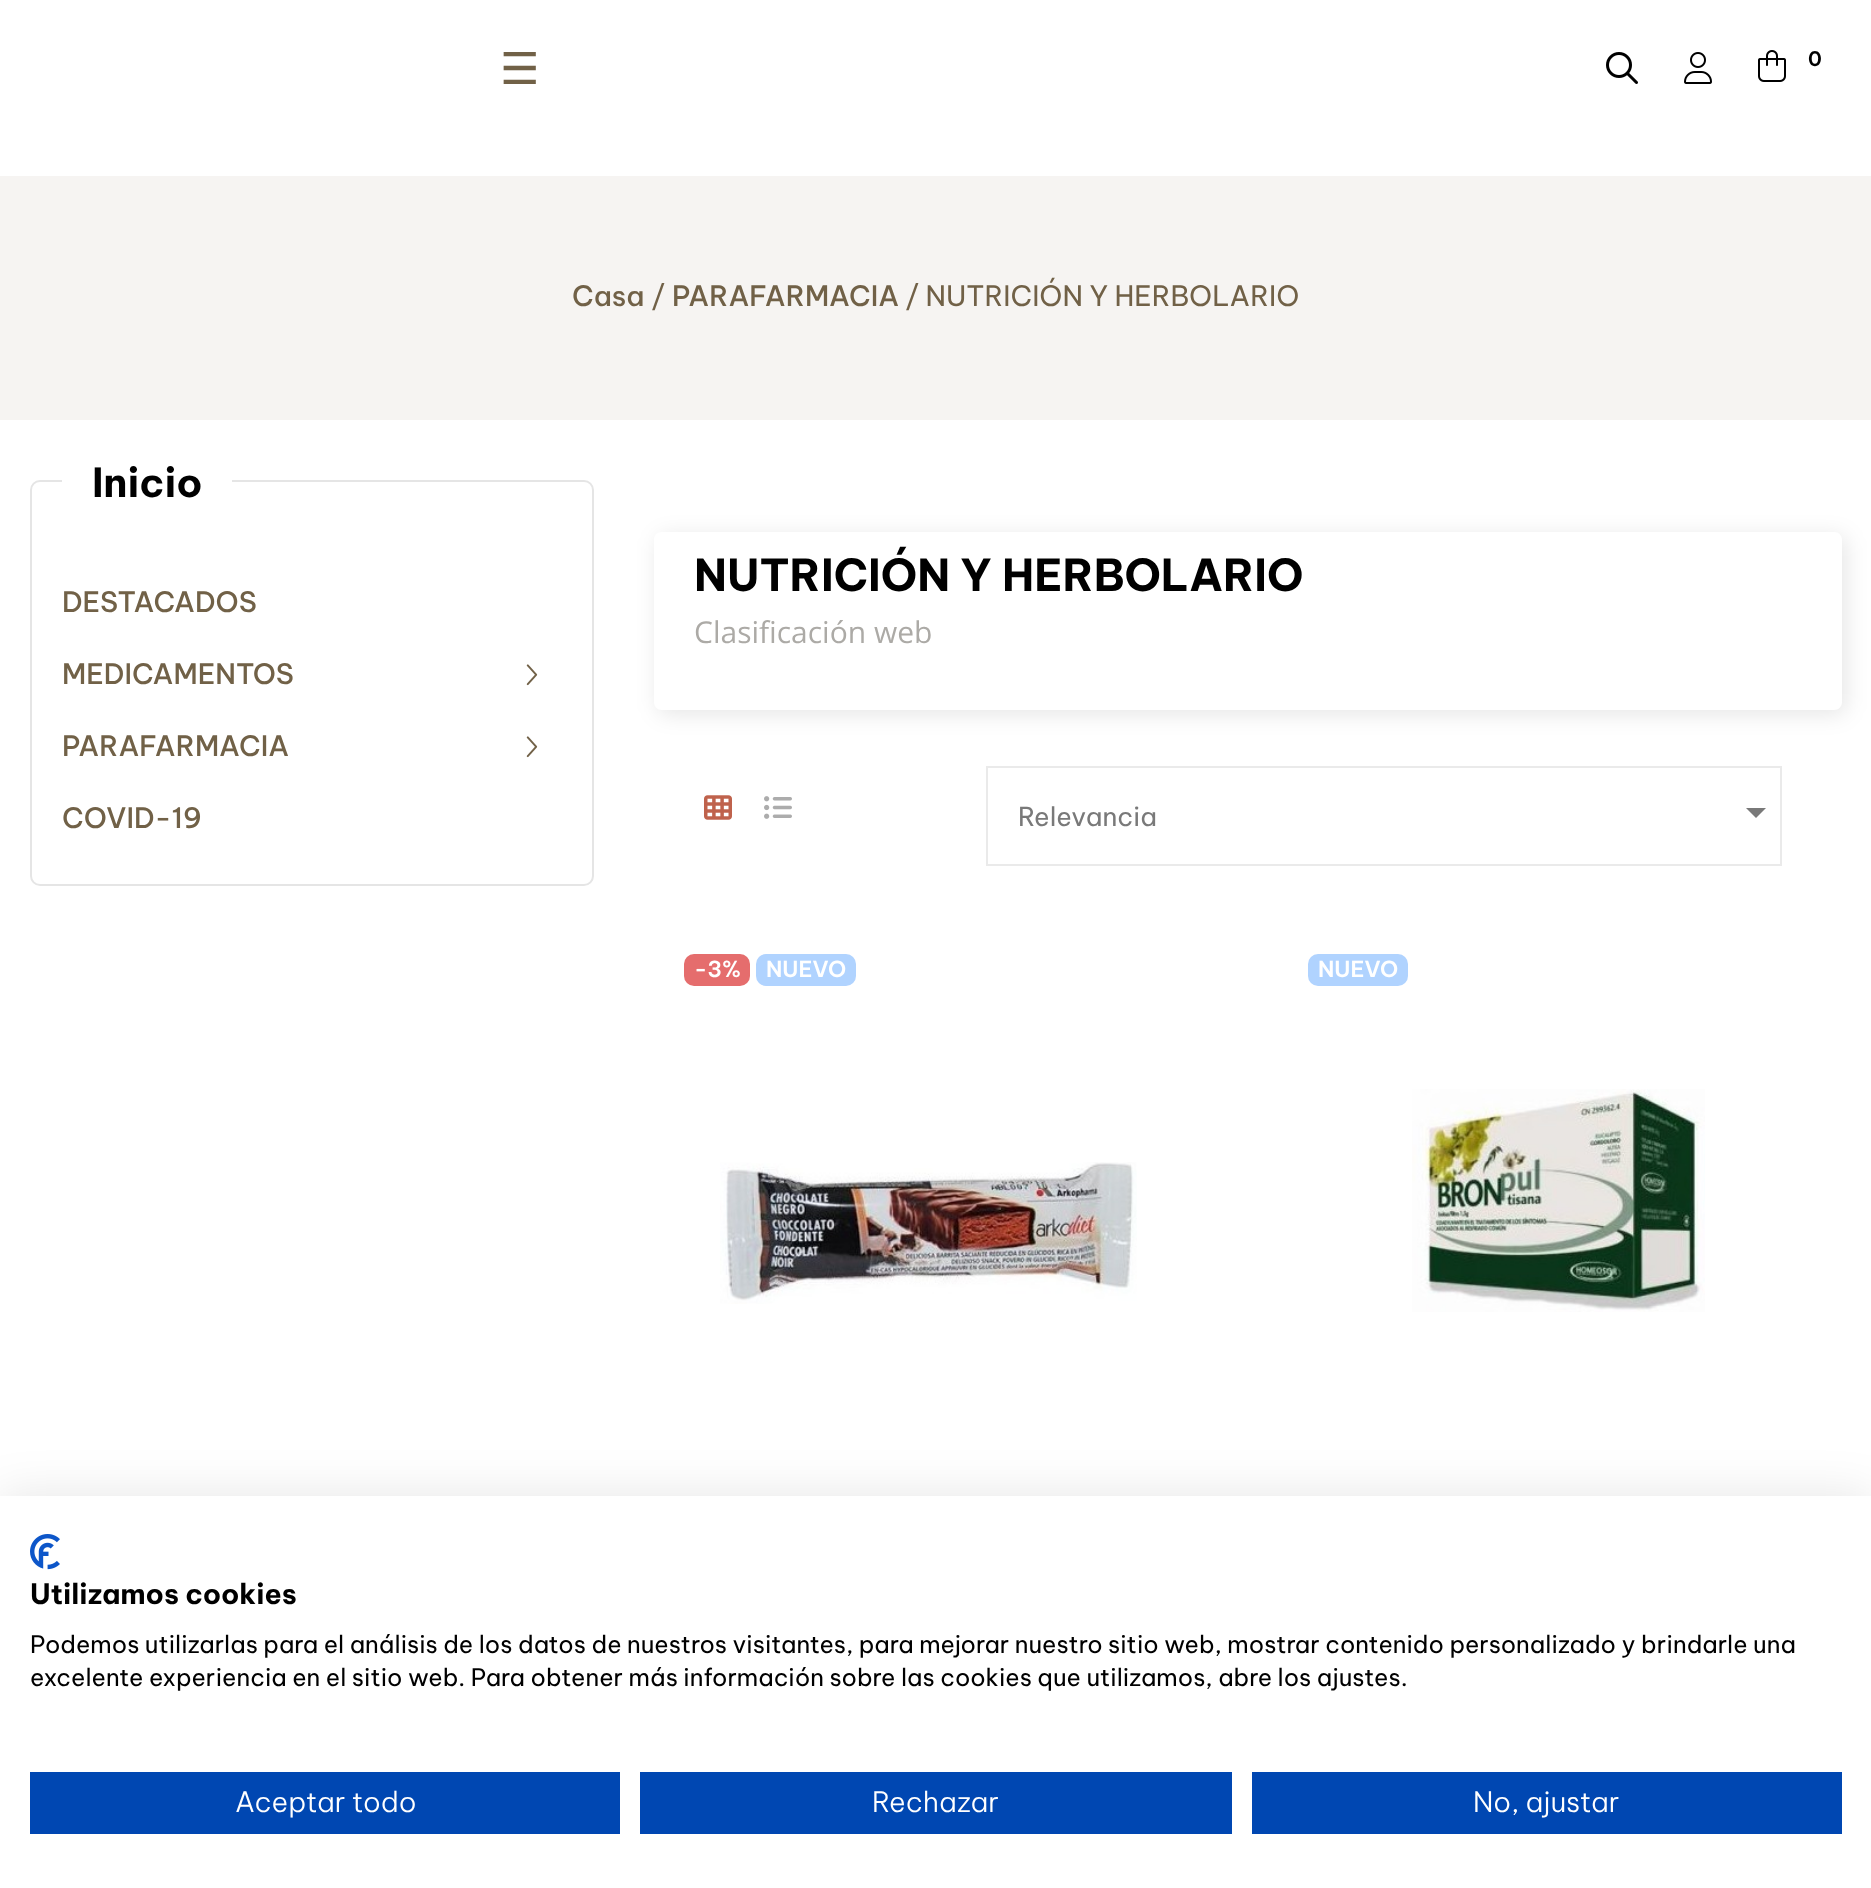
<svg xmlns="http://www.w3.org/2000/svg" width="1871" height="1888">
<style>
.a{font:44px DejaVu Sans;fill:#716147}
.b{font:600 20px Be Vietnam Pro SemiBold;fill:#000}
.c{font:500 28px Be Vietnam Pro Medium;fill:#716147}
.d{font:28px Be Vietnam Pro;fill:#716147}
.e{font:bold 40px Be Vietnam Pro;fill:#000}
.f{font:bold 44px Be Vietnam Pro;fill:#000}
.g{font:30px Open Sans;fill:#acaaa6}
.h{font:26px Be Vietnam Pro;fill:#797979}
.i{font:600 22px Be Vietnam Pro SemiBold;fill:#fff}
.j{font:bold 28px Be Vietnam Pro;fill:#000}
.k{font:24px Be Vietnam Pro;fill:#000}
.l{font:300 28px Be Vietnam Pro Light;fill:#fff}
</style>
<defs>
<clipPath id="clip1"><path d="M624 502h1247v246h-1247zm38 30h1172c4.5 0 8 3.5 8 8v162c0 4.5-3.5 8-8 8h-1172c-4.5 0-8-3.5-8-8v-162c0-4.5 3.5-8 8-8z" clip-rule="evenodd"/></clipPath>
</defs>
<rect width="100%" height="100%" fill="#fff"/>
<image href="1.png" x="1606" y="52" width="32" height="32"/>
<image href="2.png" x="1684" y="52" width="28" height="32"/>
<image href="3.png" x="1758" y="50" width="28" height="32"/>
<path fill="#f6f4f2" d="M0 176h1871v244H0z"/>
<rect fill="none" stroke="#e5e5e5" stroke-width="2" x="31" y="481" width="562" height="404" rx="9"/>
<path fill="#fff" d="M62 480h170v2H62z"/>
<image href="4.png" x="526" y="664" width="12" height="22"/>
<image href="4.png" x="526" y="736" width="12" height="22"/>
<g clip-path="url(#clip1)">
<rect fill="#0000001a" filter="blur(11px)" x="658" y="536" width="1188" height="178" rx="8"/>
</g>
<image href="5.png" x="704" y="795" width="28" height="25"/>
<image href="6.png" x="764" y="796" width="28" height="23"/>
<path fill="none" stroke="#eaeaea" stroke-width="2" d="M987 767h794v98H987z"/>
<path fill="#797979" d="M1746 808h20l-10 10z"/>
<rect fill="#e56d6d" x="684" y="954" width="66" height="32" rx="10"/>
<rect fill="#b0d3ff" x="756" y="954" width="100" height="32" rx="10"/>
<image href="7.png" x="720" y="1162" width="417" height="142"/>
<rect fill="#b0d3ff" x="1308" y="954" width="100" height="32" rx="10"/>
<image href="8.png" x="1412" y="1089" width="293" height="223"/>
<path fill="#0000001a" filter="blur(24px)" d="M0 1496h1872v392H0z"/>
<path fill="#fff" d="M0 1496h1871v392H0z"/>
<image href="9.png" x="30" y="1534" width="30" height="36"/>
<path fill="#0047b2" d="M30 1772h590v62H30z"/>
<path fill="#0047b2" d="M640 1772h592v62H640z"/>
<path fill="#0047b2" d="M1252 1772h590v62H1252z"/>
<text class="a" x="500" y="84">☰</text>
<text class="b" x="1808" y="66">0</text>
<text class="c" x="572" y="306">Casa</text>
<text class="d" x="651" y="306">/</text>
<text class="c" x="672" y="306">PARAFARMACIA</text>
<text class="d" x="905" y="306">/ NUTRICIÓN Y HERBOLARIO</text>
<text class="e" x="92" y="497">Inicio</text>
<text class="c" x="62" y="612">DESTACADOS</text>
<text class="c" x="62" y="684">MEDICAMENTOS</text>
<text class="c" x="62" y="756">PARAFARMACIA</text>
<text class="c" x="62" y="828">COVID-19</text>
<text class="f" x="694" y="591">NUTRICIÓN Y HERBOLARIO</text>
<text class="g" x="694" y="643">Clasificación web</text>
<text class="h" x="1018" y="826">Relevancia</text>
<text class="i" x="694" y="977">-3%</text>
<text class="i" x="766" y="977">NUEVO</text>
<text class="i" x="1318" y="977">NUEVO</text>
<text class="j" x="30" y="1604">Utilizamos cookies</text>
<text class="k" x="30" y="1653">Podemos utilizarlas para el análisis de los datos de nuestros visitantes, para mejorar nuestro sitio web, mostrar contenido personalizado y brindarle una</text>
<text class="k" x="30" y="1686">excelente experiencia en el sitio web. Para obtener más información sobre las cookies que utilizamos, abre los ajustes.</text>
<text class="l" x="235" y="1812">Aceptar todo</text>
<text class="l" x="872" y="1812">Rechazar</text>
<text class="l" x="1473" y="1812">No, ajustar</text>
</svg>
